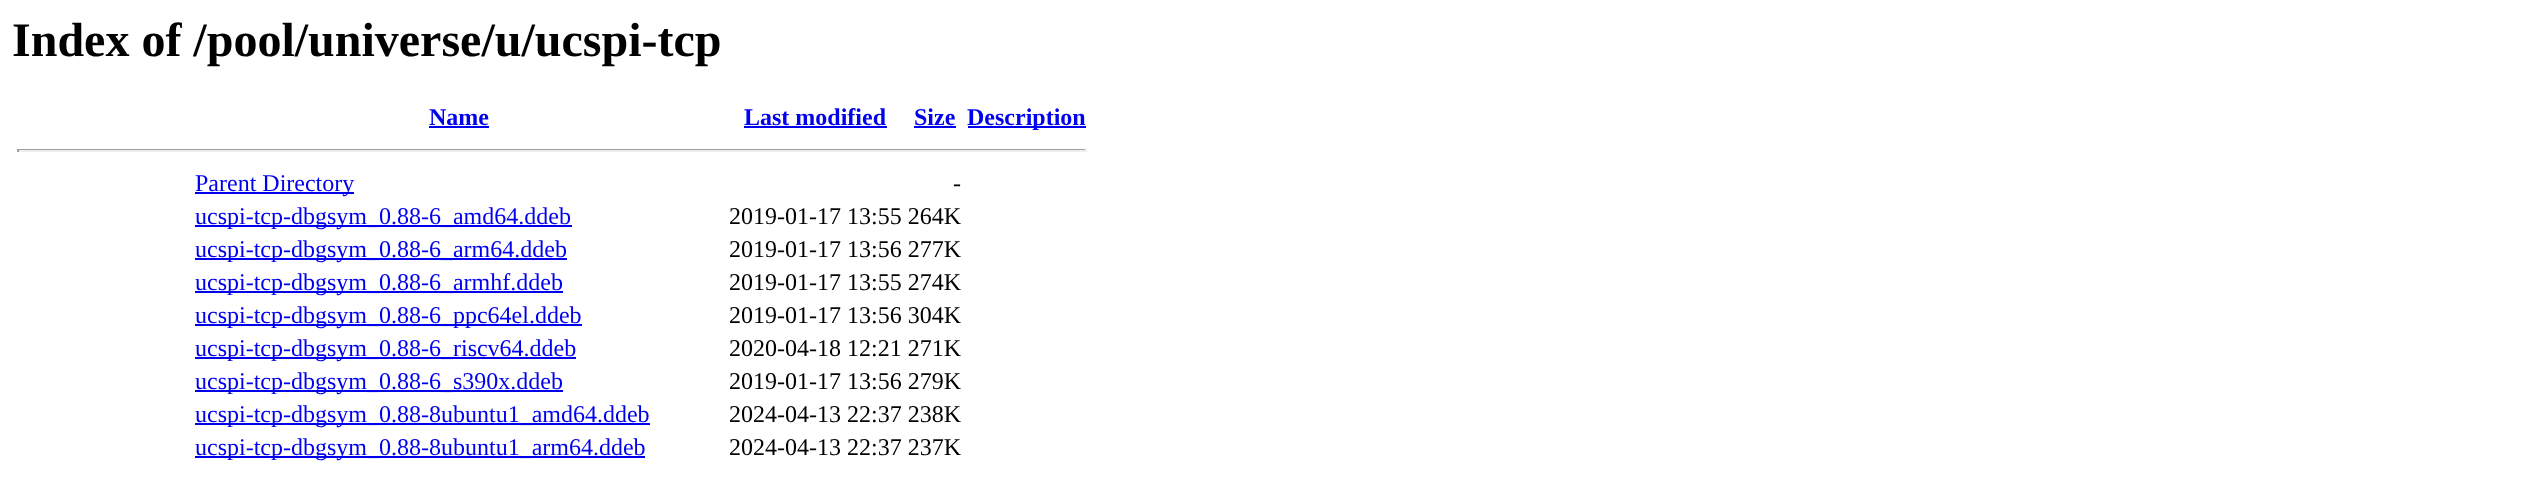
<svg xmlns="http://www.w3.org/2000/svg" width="2523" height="481">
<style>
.a{font:bold 48px Liberation Serif;fill:#000}
.b{font:bold 24px Liberation Serif;fill:#00e}
.c{font:24px Liberation Serif;fill:#00e}
.d{font:24px Liberation Serif;fill:#000}
</style>
<rect width="100%" height="100%" fill="#fff"/>
<path fill="#00e" d="M429 126h60v2H429z"/>
<path fill="#00e" d="M744 126h143v2H744z"/>
<path fill="#00e" d="M914 126h42v2H914z"/>
<path fill="#00e" d="M968 126h118v2H968z"/>
<path fill="#9f9f9f" d="M17 149h1069v1H17z"/>
<path fill="#eee" d="M1085 149h2v3H1085z"/>
<path fill="#eee" d="M17 150h1069v2H17z"/>
<path fill="#9f9f9f" d="M17 149h2v3H17z"/>
<path fill="#00e" d="M195 192h159v2H195z"/>
<path fill="#00e" d="M195 225h377v2H195z"/>
<path fill="#00e" d="M195 258h372v2H195z"/>
<path fill="#00e" d="M195 291h368v2H195z"/>
<path fill="#00e" d="M195 324h387v2H195z"/>
<path fill="#00e" d="M195 357h381v2H195z"/>
<path fill="#00e" d="M195 390h368v2H195z"/>
<path fill="#00e" d="M195 423h455v2H195z"/>
<path fill="#00e" d="M195 456h450v2H195z"/>
<text class="a" x="12" y="56">Index of /pool/universe/u/ucspi-tcp</text>
<text class="b" x="429" y="125">Name</text>
<text class="b" x="744" y="125">Last modified</text>
<text class="b" x="914" y="125">Size</text>
<text class="b" x="967" y="125">Description</text>
<text class="c" x="195" y="191">Parent Directory</text>
<text class="d" x="953" y="191">-</text>
<text class="c" x="195" y="224">ucspi-tcp-dbgsym_0.88-6_amd64.ddeb</text>
<text class="d" x="729" y="224">2019-01-17 13:55 264K</text>
<text class="c" x="195" y="257">ucspi-tcp-dbgsym_0.88-6_arm64.ddeb</text>
<text class="d" x="729" y="257">2019-01-17 13:56 277K</text>
<text class="c" x="195" y="290">ucspi-tcp-dbgsym_0.88-6_armhf.ddeb</text>
<text class="d" x="729" y="290">2019-01-17 13:55 274K</text>
<text class="c" x="195" y="323">ucspi-tcp-dbgsym_0.88-6_ppc64el.ddeb</text>
<text class="d" x="729" y="323">2019-01-17 13:56 304K</text>
<text class="c" x="195" y="356">ucspi-tcp-dbgsym_0.88-6_riscv64.ddeb</text>
<text class="d" x="729" y="356">2020-04-18 12:21 271K</text>
<text class="c" x="195" y="389">ucspi-tcp-dbgsym_0.88-6_s390x.ddeb</text>
<text class="d" x="729" y="389">2019-01-17 13:56 279K</text>
<text class="c" x="195" y="422">ucspi-tcp-dbgsym_0.88-8ubuntu1_amd64.ddeb</text>
<text class="d" x="729" y="422">2024-04-13 22:37 238K</text>
<text class="c" x="195" y="455">ucspi-tcp-dbgsym_0.88-8ubuntu1_arm64.ddeb</text>
<text class="d" x="729" y="455">2024-04-13 22:37 237K</text>
</svg>
